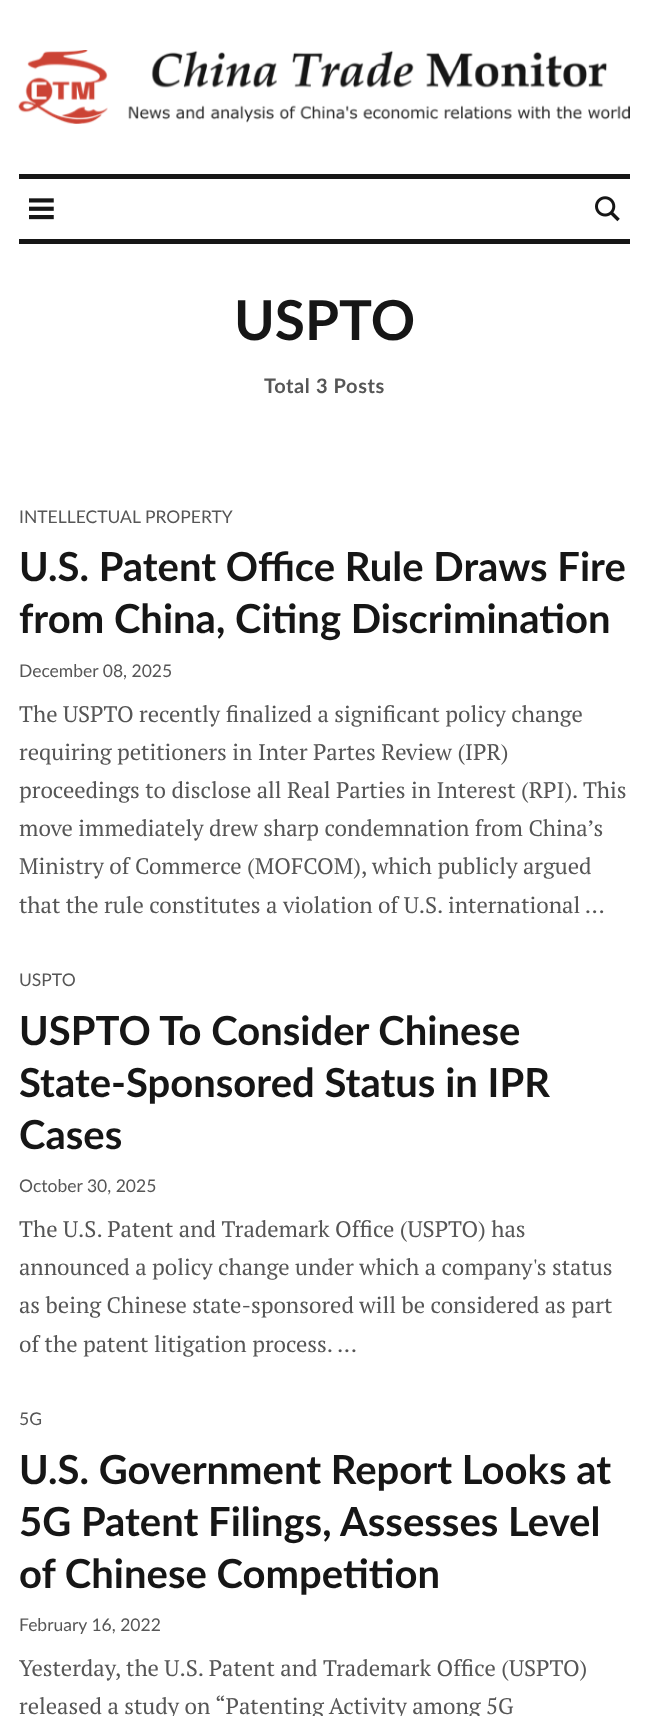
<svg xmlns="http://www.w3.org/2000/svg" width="648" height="1716">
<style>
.a{font:bold 55px Lato;fill:#161616}
.b{font:bold 20px Lato;letter-spacing:0.6px;fill:#565656}
.c{font:17.5px Lato;fill:#565656}
.d{font:bold 40px Lato;fill:#161616}
.e{font:22.5px PT Serif;fill:#565656}
</style>
<rect width="100%" height="100%" fill="#fff"/>
<image href="1.png" x="18" y="50" width="612" height="74"/>
<path fill="#161616" d="M19 174h611v5H19z"/>
<path fill="#161616" d="M19 239h611v5H19z"/>
<image href="2.png" x="29" y="198" width="25" height="22"/>
<image href="3.png" x="595" y="196" width="25" height="26"/>
<text class="a" x="234" y="340">USPTO</text>
<text class="b" x="264" y="393">Total 3 Posts</text>
<text class="c" x="19" y="523">INTELLECTUAL PROPERTY</text>
<text class="d" x="19" y="581">U.S. Patent Office Rule Draws Fire</text>
<text class="d" x="19" y="633">from China, Citing Discrimination</text>
<text class="c" x="19" y="677">December 08, 2025</text>
<text class="e" x="19" y="722">The USPTO recently finalized a significant policy change</text>
<text class="e" x="19" y="760">requiring petitioners in Inter Partes Review (IPR)</text>
<text class="e" x="19" y="798">proceedings to disclose all Real Parties in Interest (RPI). This</text>
<text class="e" x="19" y="836">move immediately drew sharp condemnation from China’s</text>
<text class="e" x="19" y="874">Ministry of Commerce (MOFCOM), which publicly argued</text>
<text class="e" x="19" y="913">that the rule constitutes a violation of U.S. international ...</text>
<text class="c" x="19" y="986">USPTO</text>
<text class="d" x="19" y="1045">USPTO To Consider Chinese</text>
<text class="d" x="19" y="1097">State-Sponsored Status in IPR</text>
<text class="d" x="19" y="1149">Cases</text>
<text class="c" x="19" y="1192">October 30, 2025</text>
<text class="e" x="19" y="1237">The U.S. Patent and Trademark Office (USPTO) has</text>
<text class="e" x="19" y="1275">announced a policy change under which a company's status</text>
<text class="e" x="19" y="1313">as being Chinese state-sponsored will be considered as part</text>
<text class="e" x="19" y="1352">of the patent litigation process.</text>
<text class="e" x="337" y="1352">...</text>
<text class="c" x="19" y="1425">5G</text>
<text class="d" x="19" y="1484">U.S. Government Report Looks at</text>
<text class="d" x="19" y="1536">5G Patent Filings, Assesses Level</text>
<text class="d" x="19" y="1588">of Chinese Competition</text>
<text class="c" x="19" y="1631">February 16, 2022</text>
<text class="e" x="19" y="1676">Yesterday, the U.S. Patent and Trademark Office (USPTO)</text>
<text class="e" x="19" y="1714">released a study on “Patenting Activity among 5G</text>
</svg>
